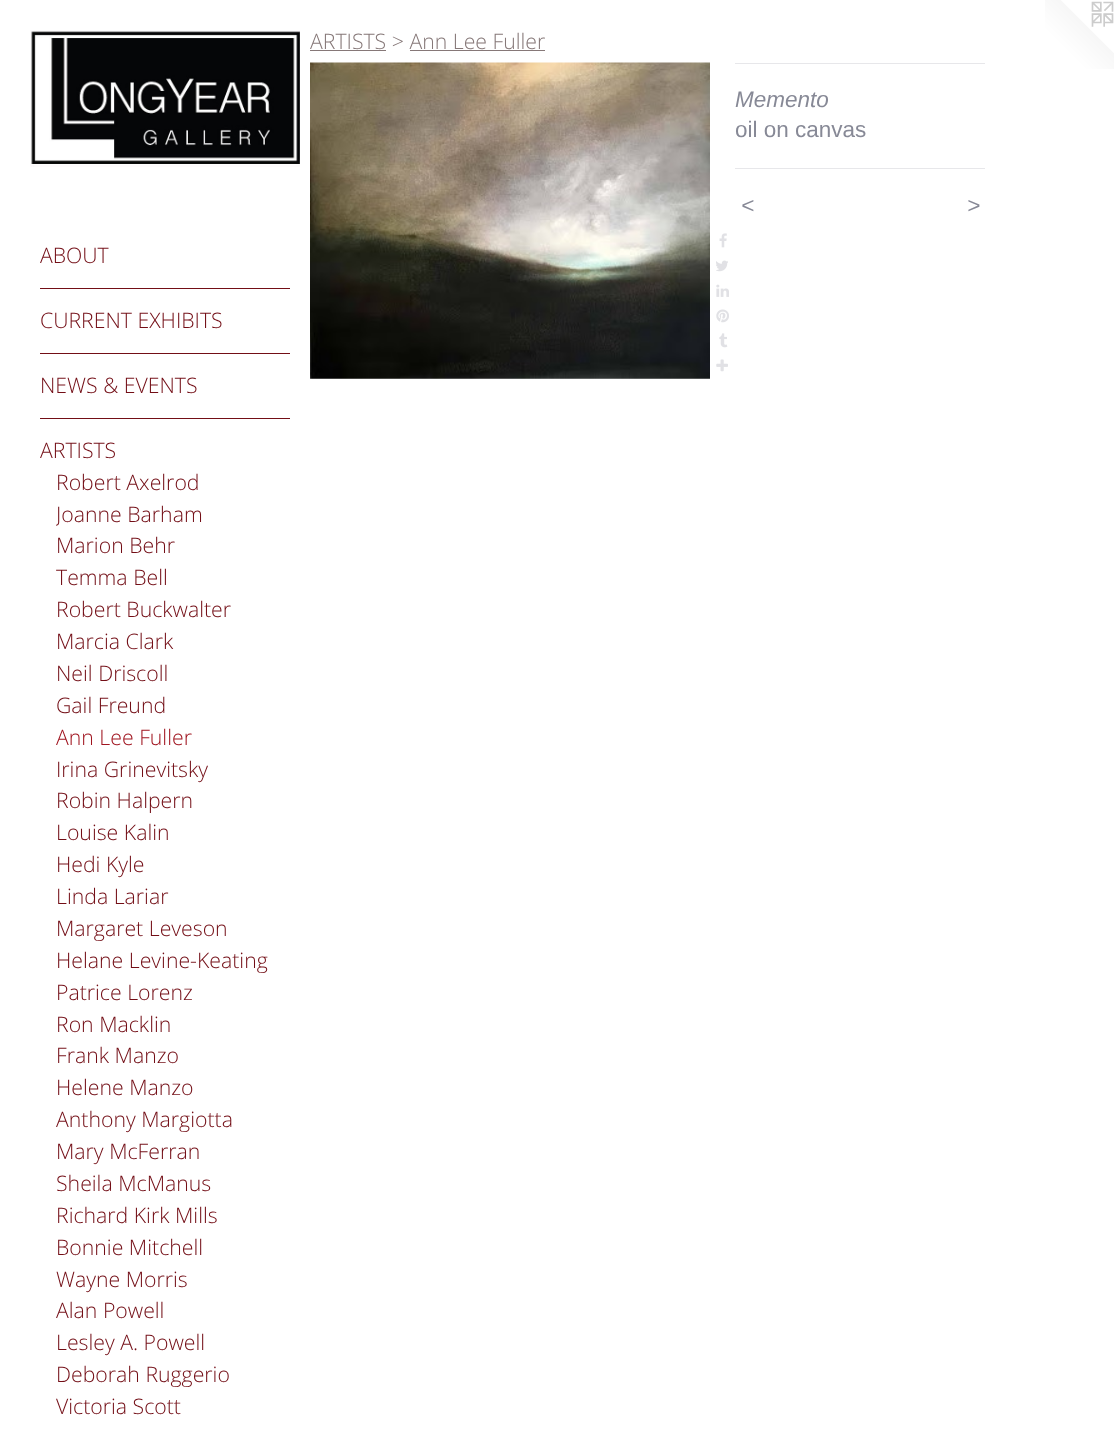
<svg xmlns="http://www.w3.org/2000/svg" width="1114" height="1434">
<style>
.a{font:300 21.25px Open Sans;fill:#867878}
.b{font:italic 22.5px Liberation Sans;fill:#878996}
.c{font:22.5px Liberation Sans;fill:#878996}
.d{font:italic 22.5px Liberation Sans;letter-spacing:1px;fill:#878996}
.e{font:300 21.25px Open Sans;fill:#730e16}
.f{font:300 21.25px Open Sans;fill:#a0141f}
</style>
<defs>
<clipPath id="clip1"><path d="M56 498h234v32H56z"/></clipPath>
</defs>
<rect width="100%" height="100%" fill="#fff"/>
<path fill="#867878" d="M310 50h76v1H310z"/>
<path fill="#867878" d="M410 50h135v1H410z"/>
<image href="1.png" x="310" y="62" width="400" height="317"/>
<image href="2.png" x="719" y="233" width="8" height="15"/>
<image href="3.png" x="716" y="260" width="12" height="12"/>
<image href="4.png" x="716" y="284" width="13" height="13"/>
<image href="5.png" x="716" y="309" width="13" height="14"/>
<image href="6.png" x="719" y="333" width="9" height="15"/>
<image href="7.png" x="716" y="359" width="12" height="13"/>
<path fill="#e7e7ea" d="M735 63h250v1H735z"/>
<path fill="#e7e7ea" d="M735 168h250v1H735z"/>
<image href="8.png" x="1045" y="0" width="69" height="69"/>
<image href="9.png" x="30" y="30" width="270" height="137"/>
<path fill="#730e16" d="M40 288h250v1H40z"/>
<path fill="#730e16" d="M40 353h250v1H40z"/>
<path fill="#730e16" d="M40 418h250v1H40z"/>
<text class="a" x="310" y="49">ARTISTS &gt; Ann Lee Fuller</text>
<text class="b" x="735" y="107">Memento</text>
<text class="c" x="735" y="137">oil on canvas</text>
<text class="d" x="741" y="213">&lt;</text>
<text class="d" x="967" y="213">&gt;</text>
<text class="e" x="40" y="263">ABOUT</text>
<text class="e" x="40" y="328">CURRENT EXHIBITS</text>
<text class="e" x="40" y="393">NEWS &amp; EVENTS</text>
<text class="e" x="40" y="458">ARTISTS</text>
<text class="e" x="56" y="490">Robert Axelrod</text>
<g clip-path="url(#clip1)">
<text class="e" x="56" y="522">Joanne Barham</text>
</g>
<text class="e" x="56" y="553">Marion Behr</text>
<text class="e" x="56" y="585">Temma Bell</text>
<text class="e" x="56" y="617">Robert Buckwalter</text>
<text class="e" x="56" y="649">Marcia Clark</text>
<text class="e" x="56" y="681">Neil Driscoll</text>
<text class="e" x="56" y="713">Gail Freund</text>
<text class="f" x="56" y="745">Ann Lee Fuller</text>
<text class="e" x="56" y="777">Irina Grinevitsky</text>
<text class="e" x="56" y="808">Robin Halpern</text>
<text class="e" x="56" y="840">Louise Kalin</text>
<text class="e" x="56" y="872">Hedi Kyle</text>
<text class="e" x="56" y="904">Linda Lariar</text>
<text class="e" x="56" y="936">Margaret Leveson</text>
<text class="e" x="56" y="968">Helane Levine-Keating</text>
<text class="e" x="56" y="1000">Patrice Lorenz</text>
<text class="e" x="56" y="1032">Ron Macklin</text>
<text class="e" x="56" y="1063">Frank Manzo</text>
<text class="e" x="56" y="1095">Helene Manzo</text>
<text class="e" x="56" y="1127">Anthony Margiotta</text>
<text class="e" x="56" y="1159">Mary McFerran</text>
<text class="e" x="56" y="1191">Sheila McManus</text>
<text class="e" x="56" y="1223">Richard Kirk Mills</text>
<text class="e" x="56" y="1255">Bonnie Mitchell</text>
<text class="e" x="56" y="1287">Wayne Morris</text>
<text class="e" x="56" y="1318">Alan Powell</text>
<text class="e" x="56" y="1350">Lesley A. Powell</text>
<text class="e" x="56" y="1382">Deborah Ruggerio</text>
<text class="e" x="56" y="1414">Victoria Scott</text>
</svg>
